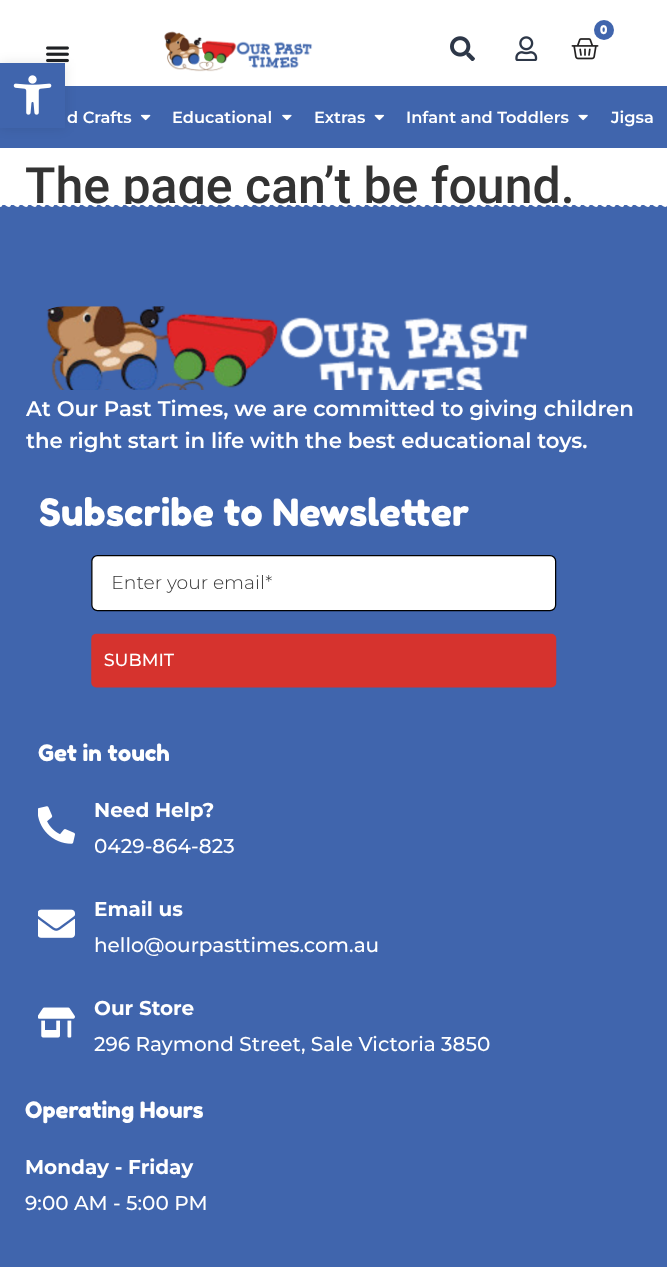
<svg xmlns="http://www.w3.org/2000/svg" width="667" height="1267">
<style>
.a{font:12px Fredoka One;fill:#fff}
.b{font:600 16.25px Montserrat;fill:#fff}
.c{font:500 50px Roboto;fill:#333}
.d{font:600 21.25px Montserrat;fill:#fff}
.e{font:37.5px Fredoka One;fill:#fff}
.f{font:22.5px Fredoka One;fill:#fff}
.g{font:bold 20px Montserrat;fill:#fff}
.h{font:500 20px Montserrat;fill:#fff}
</style>
<rect width="100%" height="100%" fill="#fff"/>
<image href="3.png" x="46" y="46" width="23" height="17"/>
<path fill="#4065ad" d="M0 86h667v62H0z"/>
<path fill="#0000001a" filter="blur(6px)" d="M0 63h65v65H0z"/>
<path fill="#4065ad" d="M0 63h65v65H0z"/>
<image href="1.png" x="13" y="75" width="39" height="40"/>
<image href="2.png" x="571" y="38" width="28" height="22"/>
<circle fill="#4065ad" cx="604" cy="30" r="10"/>
<image href="4.png" x="164" y="31" width="149" height="41"/>
<image href="5.png" x="450" y="36" width="25" height="25"/>
<image href="6.png" x="515" y="36" width="23" height="25"/>
<image href="7.png" x="140" y="114" width="11" height="7"/>
<image href="8.png" x="282" y="114" width="10" height="7"/>
<image href="9.png" x="374" y="114" width="11" height="7"/>
<image href="10.png" x="578" y="114" width="10" height="7"/>
<text class="a" x="600" y="34">0</text>
<text class="b" x="67" y="123">d Crafts</text>
<text class="b" x="172" y="123">Educational</text>
<text class="b" x="314" y="123">Extras</text>
<text class="b" x="406" y="123">Infant and Toddlers</text>
<text class="b" x="611" y="123">Jigsa</text>
<text class="c" x="25" y="203">The page can’t be found.</text>
<path fill="#4065ad" d="M0 205h667v1062H0z"/>
<image href="11.png" x="0" y="204" width="667" height="3"/>
<image href="12.png" x="46" y="306" width="483" height="84"/>
<text class="d" x="26" y="416">At Our Past Times, we are committed to giving children</text>
<text class="d" x="26" y="448">the right start in life with the best educational toys.</text>
<text class="e" x="39" y="526">Subscribe to Newsletter</text>
<image href="13.png" x="91" y="555" width="466" height="133"/>
<text class="f" x="38" y="761">Get in touch</text>
<image href="14.png" x="38" y="806" width="37" height="38"/>
<text class="g" x="94" y="817">Need Help?</text>
<text class="h" x="94" y="853">0429-864-823</text>
<image href="15.png" x="38" y="909" width="37" height="29"/>
<text class="g" x="94" y="916">Email us</text>
<text class="h" x="94" y="952">hello@ourpasttimes.com.au</text>
<image href="16.png" x="38" y="1007" width="37" height="31"/>
<text class="g" x="94" y="1015">Our Store</text>
<text class="h" x="94" y="1051">296 Raymond Street, Sale Victoria 3850</text>
<text class="f" x="25" y="1118">Operating Hours</text>
<text class="g" x="25" y="1174">Monday - Friday</text>
<text class="h" x="25" y="1210">9:00 AM - 5:00 PM</text>
</svg>
